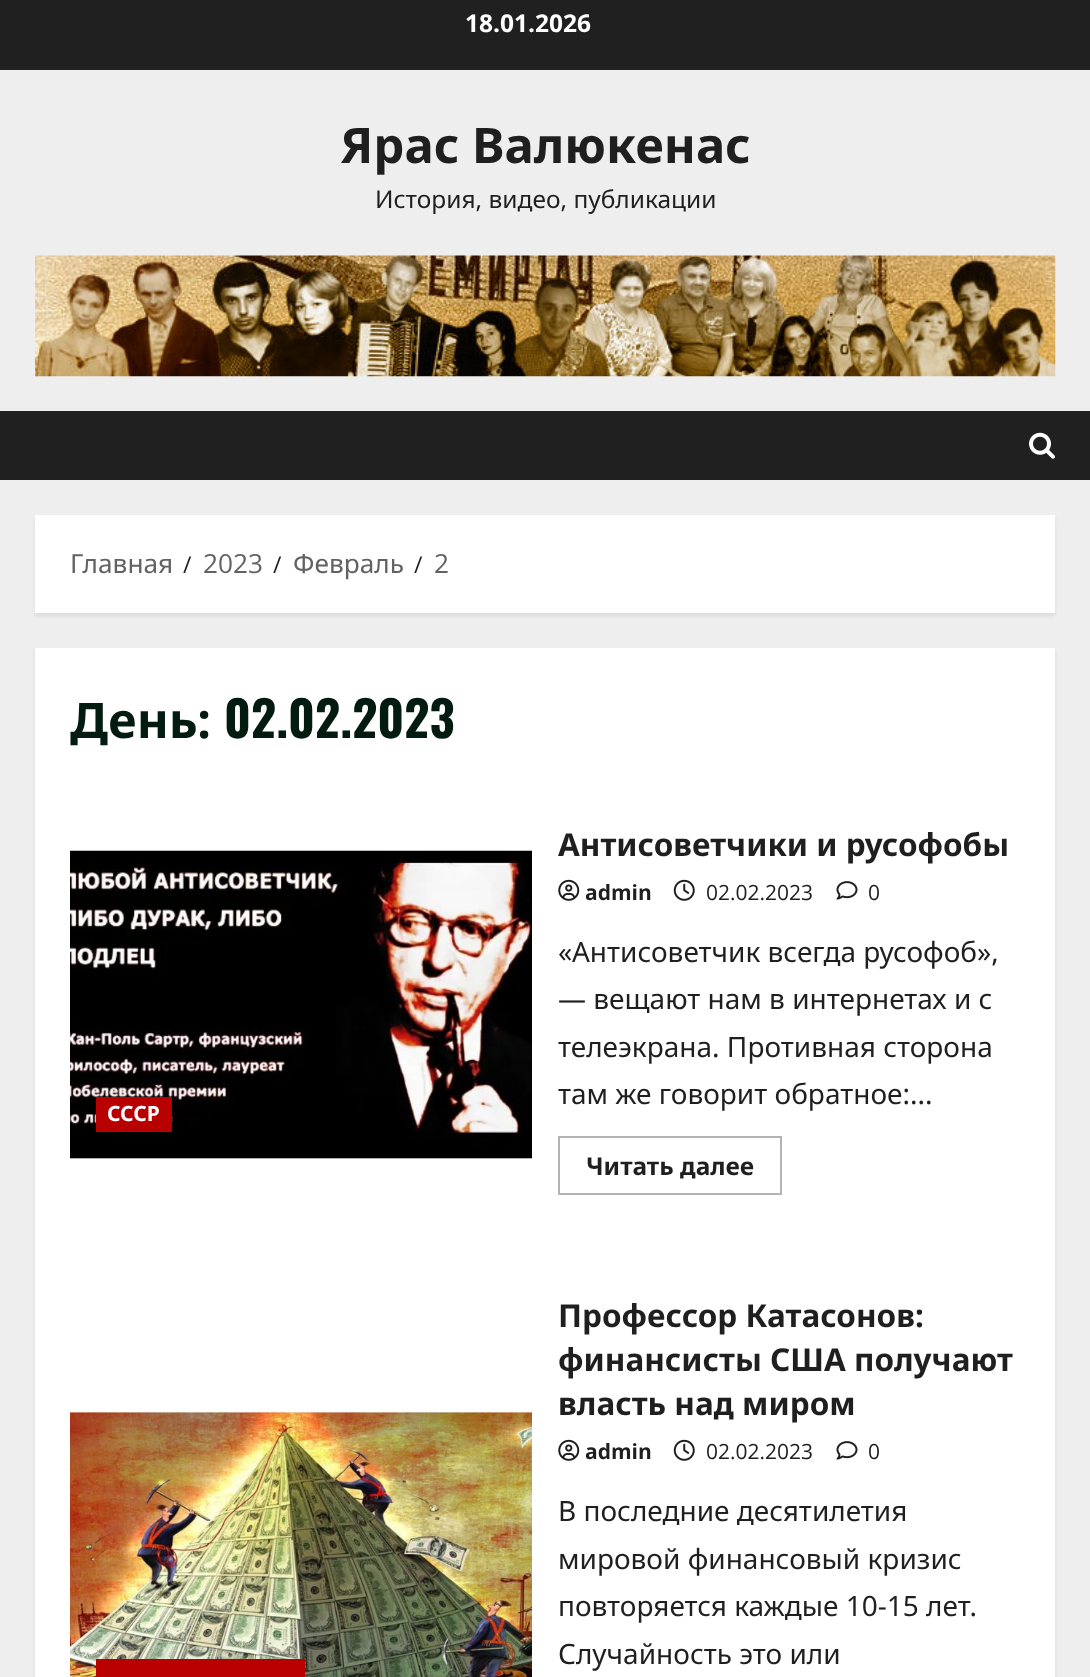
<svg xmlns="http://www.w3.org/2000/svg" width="1090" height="1677">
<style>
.a{font:bold 24.5px Open Sans;fill:#fff}
.b{font:bold 49px Noto Sans;fill:#1f1f1f}
.c{font:24.5px Noto Sans;fill:#1f1f1f}
.d{font:26.25px Noto Sans;fill:#626262}
.e{font:23px Open Sans;fill:#1f1f1f}
.f{font:26.25px Open Sans;fill:#626262}
.g{font:bold 49px Noto Sans;fill:#031b11}
.h{font:bold 49px Oswald;fill:#031b11}
.i{font:bold 21px Noto Sans;fill:#fff}
.j{font:bold 31.5px Noto Sans;fill:#1f1f1f}
.k{font:bold 21px Open Sans;fill:#1f1f1f}
.l{font:21px Open Sans;fill:#1f1f1f}
.m{font:28px Noto Sans;fill:#1f1f1f}
.n{font:bold 24.5px Noto Sans;fill:#1f1f1f}
</style>
<rect width="100%" height="100%" fill="#eee"/>
<path fill="#202020" d="M0 0h1090v70H0z"/>
<image href="1.png" x="35" y="255" width="1021" height="122"/>
<path fill="#202020" d="M0 411h1090v69H0z"/>
<image href="2.png" x="1029" y="432" width="26" height="27"/>
<path fill="#00000014" filter="blur(2px)" d="M35 518h1020v98H35z"/>
<path fill="#fff" d="M35 515h1020v98H35z"/>
<path fill="#00000014" filter="blur(2px)" d="M35 651h1020v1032H35z"/>
<path fill="#fff" d="M35 648h1020v1029H35z"/>
<path fill="#ececec" d="M70 1158h462v1H70z"/>
<image href="3.png" x="70" y="850" width="462" height="309"/>
<path fill="#b80000" d="M96 1097h76v35H96z"/>
<image href="4.png" x="558" y="879" width="22" height="22"/>
<image href="5.png" x="673" y="879" width="22" height="22"/>
<image href="6.png" x="836" y="881" width="22" height="19"/>
<path fill="none" stroke="#b3b3b3" stroke-width="2" d="M559 1137h222v57H559z"/>
<path fill="#ececec" d="M70 1412h462v1H70z"/>
<image href="7.png" x="70" y="1412" width="462" height="265"/>
<path fill="#b80000" d="M96 1659h209v18H96z"/>
<image href="4.png" x="558" y="1439" width="22" height="22"/>
<image href="5.png" x="673" y="1439" width="22" height="22"/>
<image href="6.png" x="836" y="1441" width="22" height="19"/>
<text class="a" x="465" y="32">18.01.2026</text>
<text class="b" x="340" y="163">Ярас Валюкенас</text>
<text class="c" x="375" y="208">История, видео, публикации</text>
<text class="d" x="70" y="573">Главная</text>
<text class="e" x="183" y="573">/</text>
<text class="f" x="203" y="573">2023</text>
<text class="e" x="273" y="573">/</text>
<text class="d" x="293" y="573">Февраль</text>
<text class="e" x="414" y="573">/</text>
<text class="f" x="434" y="573">2</text>
<text class="g" x="70" y="738">День:</text>
<text class="h" x="224" y="738">02.02.2023</text>
<text class="i" x="107" y="1121">СССР</text>
<text class="j" x="558" y="856">Антисоветчики и русофобы</text>
<text class="k" x="585" y="900">admin</text>
<text class="l" x="706" y="900">02.02.2023</text>
<text class="l" x="868" y="900">0</text>
<text class="m" x="558" y="962">«Антисоветчик всегда русофоб»,</text>
<text class="m" x="558" y="1009">— вещают нам в интернетах и с</text>
<text class="m" x="558" y="1057">телеэкрана. Противная сторона</text>
<text class="m" x="558" y="1104">там же говорит обратное:...</text>
<text class="n" x="586" y="1175">Читать далее</text>
<text class="j" x="558" y="1327">Профессор Катасонов:</text>
<text class="j" x="558" y="1371">финансисты США получают</text>
<text class="j" x="558" y="1415">власть над миром</text>
<text class="k" x="585" y="1459">admin</text>
<text class="l" x="706" y="1459">02.02.2023</text>
<text class="l" x="868" y="1459">0</text>
<text class="m" x="558" y="1521">В последние десятилетия</text>
<text class="m" x="558" y="1569">мировой финансовый кризис</text>
<text class="m" x="558" y="1616">повторяется каждые 10-15 лет.</text>
<text class="m" x="558" y="1664">Случайность это или</text>
</svg>
